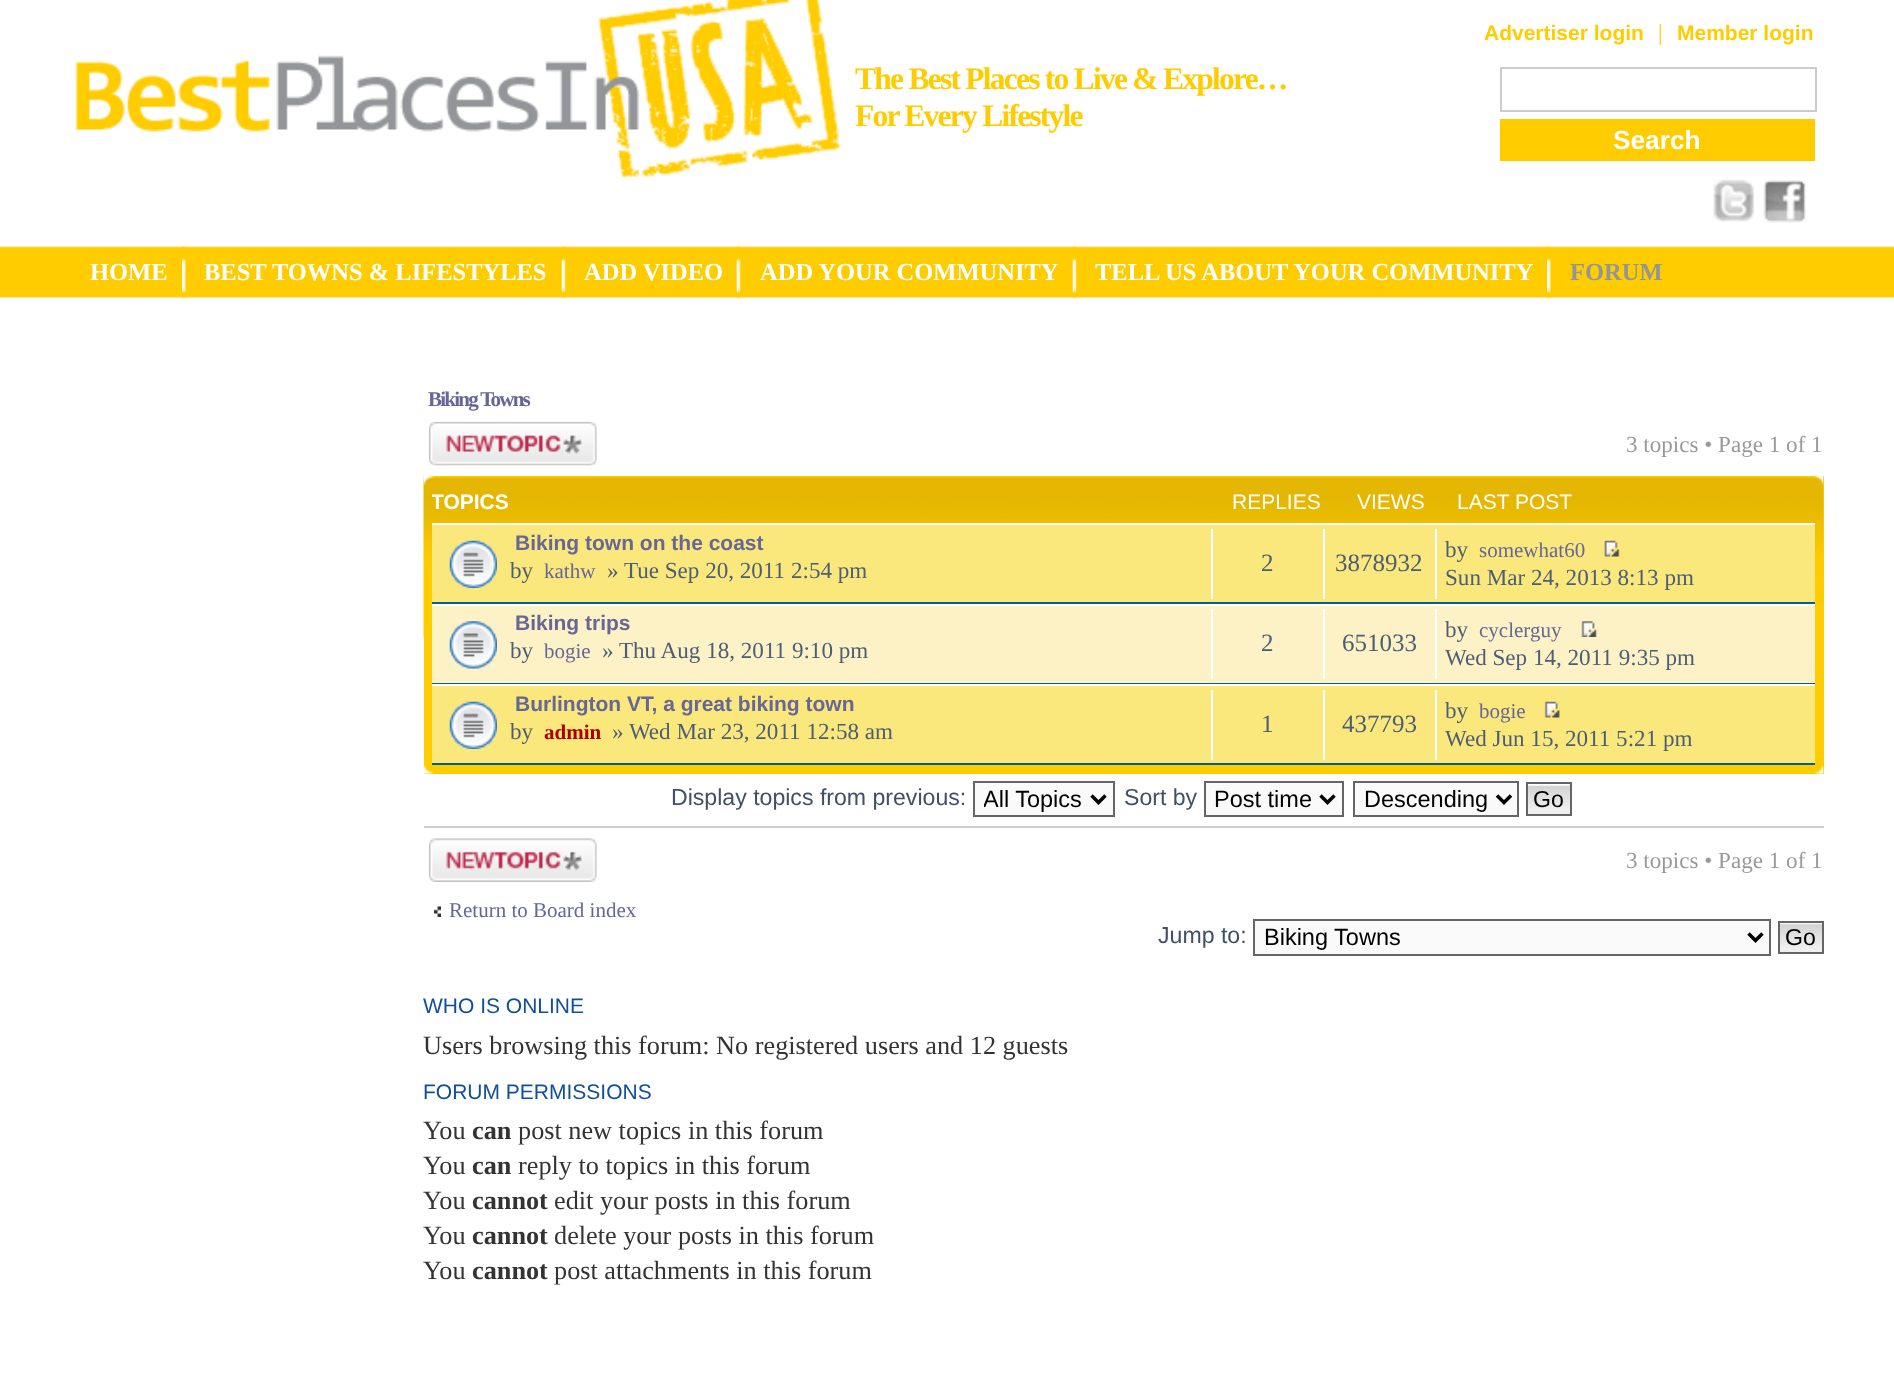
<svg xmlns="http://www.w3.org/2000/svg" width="1894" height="1373">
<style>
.a{font:bold 31.5px Liberation Serif;letter-spacing:-1.75px;fill:#fc0}
.b{font:bold 21px Liberation Sans;fill:#fc0}
.c{font:23.1px Liberation Serif;fill:#fc0}
.d{font:bold 26.25px Liberation Sans;fill:#fff}
.e{font:bold 24.5px Liberation Serif;fill:#fff}
.f{font:bold 24.5px Liberation Serif;fill:#939598}
.g{font:bold 21px Liberation Serif;letter-spacing:-1.75px;fill:#669}
.h{font:23.1px Liberation Serif;fill:#999}
.i{font:bold 21px Liberation Sans;fill:#fff}
.j{font:21px Liberation Sans;fill:#fff}
.k{font:bold 21px Liberation Sans;fill:#669}
.l{font:23.1px Liberation Serif;fill:#4c5d77}
.m{font:21px Liberation Serif;fill:#669}
.n{font:25px Liberation Serif;fill:#4c5d77}
.o{font:bold 21px Liberation Serif;fill:#a00}
.p{font:23.1px Liberation Sans;fill:#425067}
.q{font:23.5px Liberation Sans;fill:#000}
.r{font:23.1px Liberation Sans;fill:#000}
.s{font:21px Liberation Sans;fill:#115098}
.t{font:26.25px Liberation Serif;fill:#333}
.u{font:bold 26.25px Liberation Serif;fill:#333}
</style>
<defs>
<clipPath id="clip1"><path d="M432 485h1392v38H432z"/></clipPath>
<clipPath id="clip2"><path d="M984 784h99v30H984z"/></clipPath>
</defs>
<rect width="100%" height="100%" fill="#fff"/>
<image href="1.png" x="0" y="246" width="1894" height="52"/>
<image href="2.png" x="74" y="0" width="767" height="178"/>
<path fill="none" stroke="#ccc" stroke-width="2" d="M1501 68h315v43H1501z"/>
<path fill="#fc0" d="M1500 119h315v42H1500z"/>
<image href="3.png" x="1713" y="179" width="41" height="43"/>
<image href="4.png" x="1763" y="180" width="43" height="43"/>
<image href="5.png" x="182" y="246" width="4" height="52"/>
<image href="6.png" x="561" y="246" width="5" height="52"/>
<image href="6.png" x="736" y="246" width="5" height="52"/>
<image href="7.png" x="1072" y="246" width="5" height="52"/>
<image href="5.png" x="1547" y="246" width="4" height="52"/>
<image href="8.png" x="428" y="421" width="169" height="45"/>
<path fill="#fc0" d="M424 476h1400v298H424z"/>
<image href="9.png" x="423" y="476" width="1401" height="161"/>
<image href="10.png" x="423" y="476" width="12" height="9"/>
<image href="11.png" x="1813" y="476" width="11" height="9"/>
<path fill="#fae87c" d="M432 525h1383v77H432z"/>
<path fill="#fff" d="M432 523h1383v2H432z"/>
<path fill="#00608f" d="M432 602h1383v2H432z"/>
<image href="12.png" x="449" y="540" width="48" height="48"/>
<path fill="#fff" d="M1211 529h2v70H1211z"/>
<path fill="#fff" d="M1323 529h2v70H1323z"/>
<path fill="#fff" d="M1435 529h2v70H1435z"/>
<image href="13.png" x="1604" y="540" width="16" height="17"/>
<path fill="#fdf2c5" d="M432 606h1383v77H432z"/>
<path fill="#fff" d="M432 604h1383v2H432z"/>
<path fill="#00608f" d="M432 683h1383v1H432z"/>
<image href="14.png" x="449" y="621" width="48" height="48"/>
<path fill="#fff" d="M1211 609h2v70H1211z"/>
<path fill="#fff" d="M1323 609h2v70H1323z"/>
<path fill="#fff" d="M1435 609h2v70H1435z"/>
<image href="15.png" x="1581" y="621" width="16" height="16"/>
<path fill="#fae87c" d="M432 686h1383v77H432z"/>
<path fill="#fff" d="M432 684h1383v2H432z"/>
<path fill="#00608f" d="M432 763h1383v2H432z"/>
<image href="12.png" x="449" y="701" width="48" height="48"/>
<path fill="#fff" d="M1211 690h2v70H1211z"/>
<path fill="#fff" d="M1323 690h2v70H1323z"/>
<path fill="#fff" d="M1435 690h2v70H1435z"/>
<image href="16.png" x="1544" y="701" width="16" height="17"/>
<image href="17.png" x="424" y="764" width="11" height="10"/>
<image href="18.png" x="1814" y="764" width="10" height="10"/>
<path fill="#fafafa" stroke="#666" stroke-width="2" d="M974 782h140v34H974z"/>
<path fill="none" stroke="#000" stroke-width="3.5" d="M1091.5 795.5l7 7l7-7"/>
<path fill="#fafafa" stroke="#666" stroke-width="2" d="M1205 782h138v34H1205z"/>
<path fill="none" stroke="#000" stroke-width="3.5" d="M1320.5 795.5l7 7l7-7"/>
<path fill="#fafafa" stroke="#666" stroke-width="2" d="M1354 782h164v34H1354z"/>
<path fill="none" stroke="#000" stroke-width="3.5" d="M1497 795.5l7 7l7-7"/>
<image href="19.png" x="1528" y="784" width="42" height="30"/>
<path fill="none" stroke="#666" stroke-width="2" d="M1527 783h44v32H1527z"/>
<path fill="#ccc" d="M424 826h1400v2H424z"/>
<image href="20.png" x="428" y="838" width="169" height="44"/>
<image href="21.png" x="434" y="906" width="7" height="11"/>
<path fill="#fafafa" stroke="#666" stroke-width="2" d="M1254 920h516v35H1254z"/>
<path fill="none" stroke="#000" stroke-width="3.5" d="M1748.5 933.5l7 7l7-7"/>
<image href="22.png" x="1780" y="923" width="42" height="29"/>
<path fill="none" stroke="#666" stroke-width="2" d="M1779 922h44v31H1779z"/>
<text class="a" x="855" y="89">The Best Places to Live &amp; Explore…</text>
<text class="a" x="855" y="126">For Every Lifestyle</text>
<text class="b" x="1484" y="40">Advertiser login</text>
<text class="c" x="1658" y="40">|</text>
<text class="b" x="1677" y="40">Member login</text>
<text class="d" x="1613" y="149">Search</text>
<text class="e" x="90" y="280">HOME</text>
<text class="e" x="204" y="280">BEST TOWNS &amp; LIFESTYLES</text>
<text class="e" x="584" y="280">ADD VIDEO</text>
<text class="e" x="760" y="280">ADD YOUR COMMUNITY</text>
<text class="e" x="1095" y="280">TELL US ABOUT YOUR COMMUNITY</text>
<text class="f" x="1570" y="280">FORUM</text>
<text class="g" x="428" y="406">Biking Towns</text>
<text class="h" x="1626" y="452">3 topics • Page 1 of 1</text>
<g clip-path="url(#clip1)">
<text class="i" x="431" y="509">TOPICS</text>
</g>
<text class="j" x="1232" y="509">REPLIES</text>
<text class="j" x="1357" y="509">VIEWS</text>
<text class="j" x="1457" y="509">LAST POST</text>
<text class="k" x="515" y="550">Biking town on the coast</text>
<text class="l" x="510" y="578">by</text>
<text class="m" x="544" y="578">kathw</text>
<text class="l" x="607" y="578">» Tue Sep 20, 2011 2:54 pm</text>
<text class="n" x="1261" y="571">2</text>
<text class="n" x="1335" y="571">3878932</text>
<text class="l" x="1445" y="557">by</text>
<text class="m" x="1479" y="557">somewhat60</text>
<text class="l" x="1445" y="585">Sun Mar 24, 2013 8:13 pm</text>
<text class="k" x="515" y="630">Biking trips</text>
<text class="l" x="510" y="658">by</text>
<text class="m" x="544" y="658">bogie</text>
<text class="l" x="602" y="658">» Thu Aug 18, 2011 9:10 pm</text>
<text class="n" x="1261" y="651">2</text>
<text class="n" x="1342" y="651">651033</text>
<text class="l" x="1445" y="637">by</text>
<text class="m" x="1479" y="637">cyclerguy</text>
<text class="l" x="1445" y="665">Wed Sep 14, 2011 9:35 pm</text>
<text class="k" x="515" y="711">Burlington VT, a great biking town</text>
<text class="l" x="510" y="739">by</text>
<text class="o" x="544" y="739">admin</text>
<text class="l" x="612" y="739">» Wed Mar 23, 2011 12:58 am</text>
<text class="n" x="1261" y="732">1</text>
<text class="n" x="1342" y="732">437793</text>
<text class="l" x="1445" y="718">by</text>
<text class="m" x="1479" y="718">bogie</text>
<text class="l" x="1445" y="746">Wed Jun 15, 2011 5:21 pm</text>
<text class="p" x="671" y="805">Display topics from previous:</text>
<g clip-path="url(#clip2)">
<text class="q" x="983" y="807">All Topics</text>
</g>
<text class="p" x="1124" y="805">Sort by</text>
<text class="q" x="1214" y="807">Post time</text>
<text class="q" x="1364" y="807">Descending</text>
<text class="r" x="1533" y="807">Go</text>
<text class="h" x="1626" y="868">3 topics • Page 1 of 1</text>
<text class="m" x="449" y="917">Return to Board index</text>
<text class="p" x="1158" y="943">Jump to:</text>
<text class="q" x="1264" y="945">Biking Towns</text>
<text class="r" x="1785" y="945">Go</text>
<text class="s" x="423" y="1013">WHO IS ONLINE</text>
<text class="t" x="423" y="1054">Users browsing this forum: No registered users and 12 guests</text>
<text class="s" x="423" y="1099">FORUM PERMISSIONS</text>
<text class="t" x="423" y="1139">You</text>
<text class="u" x="472" y="1139">can</text>
<text class="t" x="518" y="1139">post new topics in this forum</text>
<text class="t" x="423" y="1174">You</text>
<text class="u" x="472" y="1174">can</text>
<text class="t" x="518" y="1174">reply to topics in this forum</text>
<text class="t" x="423" y="1209">You</text>
<text class="u" x="472" y="1209">cannot</text>
<text class="t" x="554" y="1209">edit your posts in this forum</text>
<text class="t" x="423" y="1244">You</text>
<text class="u" x="472" y="1244">cannot</text>
<text class="t" x="554" y="1244">delete your posts in this forum</text>
<text class="t" x="423" y="1279">You</text>
<text class="u" x="472" y="1279">cannot</text>
<text class="t" x="554" y="1279">post attachments in this forum</text>
</svg>
